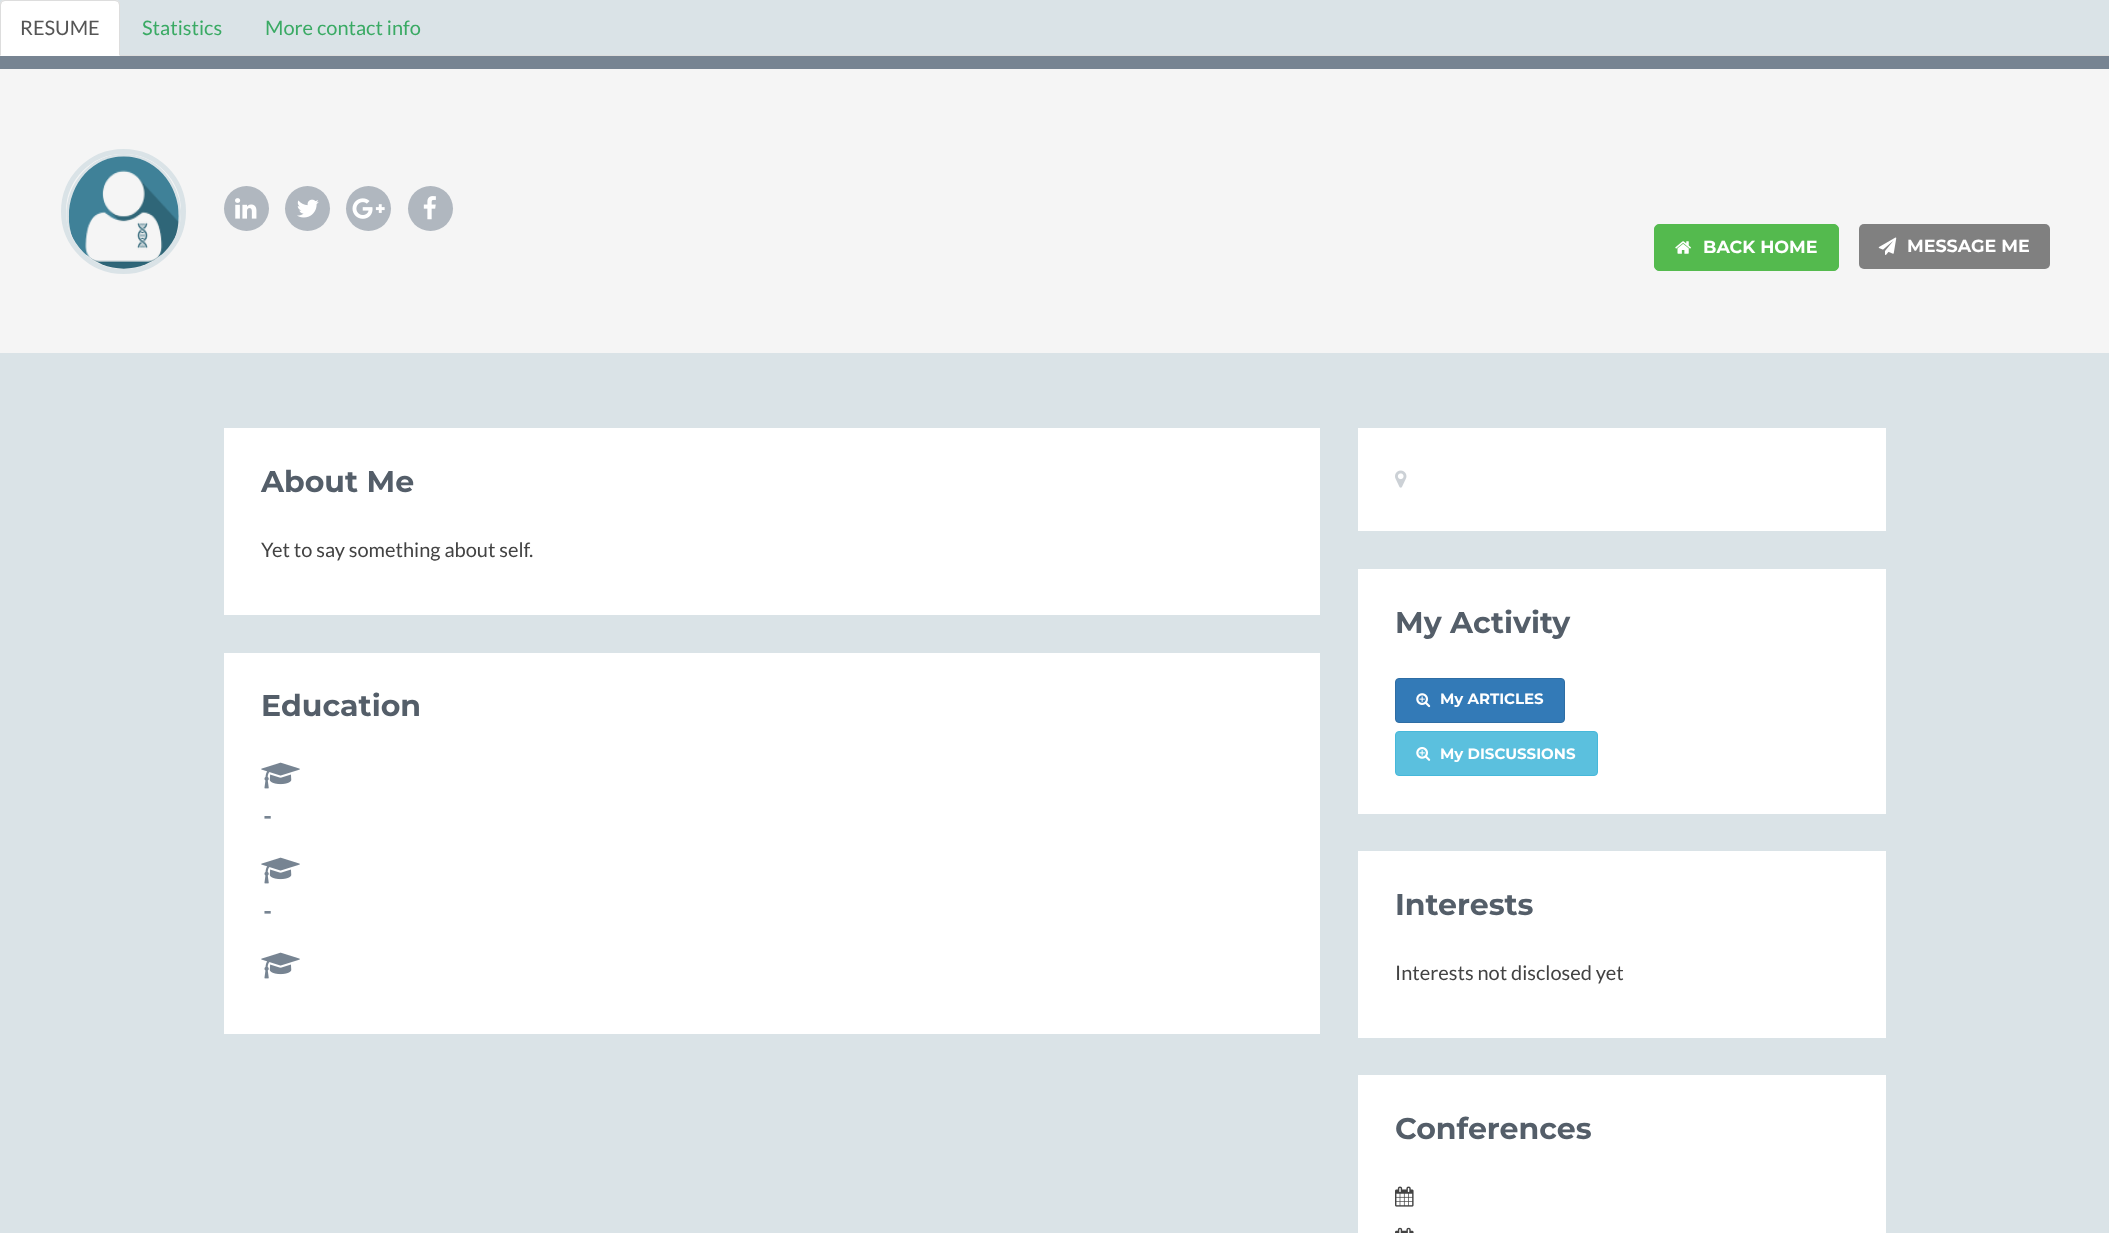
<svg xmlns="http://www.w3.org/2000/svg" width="2109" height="1233">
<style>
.a{font:20px Lato;fill:#555}
.b{font:20px Lato;fill:#3aaa64}
.c{font:bold 17.5px Montserrat;fill:#fff}
.d{font:bold 30px Montserrat;fill:#545e69}
.e{font:20px Lato;fill:#434343}
.f{font:bold 22px Liberation Mono;fill:#778492}
.g{font:bold 15px Montserrat;fill:#fff}
</style>
<defs>
<clipPath id="clip1"><rect x="66" y="154" width="115" height="115" rx="57.5"/></clipPath>
</defs>
<rect width="100%" height="100%" fill="#dae3e7"/>
<path fill="#ddd" d="M120 55h1989v1H120z"/>
<path fill="#fff" d="M5 0h110c3 0 5 2 5 5v51h-120v-51c0-3 2-5 5-5z"/>
<path fill="#ddd" d="M5 0c-1 0-3 0-4 1l1 1l3-1h110l3 1l1-1c-1-1-3-1-4-1z"/>
<path fill="#ddd" d="M120 56v-51c0-1 0-3-1-4l-1 1l1 3v50z"/>
<path fill="#ddd" d="M0 5v51l1-1v-50l1-3l-1-1c-1 1-1 3-1 4z"/>
<path fill="#f5f5f5" d="M0 69h2109v284H0z"/>
<path fill="#778492" d="M0 56h2109v13H0z"/>
<circle fill="none" stroke="#dae3e7" stroke-width="5" cx="123.5" cy="211.5" r="60"/>
<g clip-path="url(#clip1)">
<path fill="none" stroke="#dae3e7" stroke-width="2.5" d="M124 155c31 0 56 27.5 56 61c0 34-25 61.5-56 61.5c-31.5 0-56.5-27.5-56.5-61.5c0-33.5 25-61 56.5-61z"/>
</g>
<image href="1.png" x="68" y="156" width="111" height="113"/>
<circle fill="#b0b7bf" cx="246.5" cy="208.5" r="22.5"/>
<image href="2.png" x="235" y="198" width="22" height="21"/>
<circle fill="#b0b7bf" cx="307.5" cy="208.5" r="22.5"/>
<image href="3.png" x="297" y="199" width="22" height="19"/>
<circle fill="#b0b7bf" cx="368.5" cy="208.5" r="22.5"/>
<image href="4.png" x="352" y="198" width="33" height="21"/>
<circle fill="#b0b7bf" cx="430.5" cy="208.5" r="22.5"/>
<image href="5.png" x="423" y="196" width="13" height="24"/>
<rect fill="#54ba4e" stroke="#54ba4e" x="1654.5" y="224.5" width="184" height="46" rx="4.5"/>
<image href="6.png" x="1675" y="241" width="16" height="13"/>
<rect fill="#808080" x="1859" y="224" width="191" height="45" rx="5"/>
<image href="7.png" x="1878" y="237" width="19" height="18"/>
<path fill="#fff" d="M224 428h1096v187H224z"/>
<path fill="#fff" d="M224 653h1096v381H224z"/>
<image href="8.png" x="261" y="762" width="39" height="27"/>
<image href="8.png" x="261" y="857" width="39" height="27"/>
<image href="8.png" x="261" y="952" width="39" height="27"/>
<path fill="#fff" d="M1358 428h528v103H1358z"/>
<image href="9.png" x="1395" y="470" width="12" height="18"/>
<path fill="#fff" d="M1358 569h528v245H1358z"/>
<rect fill="#337ab7" stroke="#2e6da4" x="1395.5" y="678.5" width="169" height="44" rx="3.5"/>
<image href="10.png" x="1416" y="693" width="15" height="15"/>
<rect fill="#5bc0de" stroke="#46b8da" x="1395.5" y="731.5" width="202" height="44" rx="3.5"/>
<image href="11.png" x="1416" y="747" width="15" height="14"/>
<path fill="#fff" d="M1358 851h528v187H1358z"/>
<path fill="#fff" d="M1358 1075h528v158H1358z"/>
<image href="12.png" x="1395" y="1186" width="19" height="21"/>
<image href="13.png" x="1395" y="1227" width="19" height="6"/>
<text class="a" x="20" y="35">RESUME</text>
<text class="b" x="142" y="35">Statistics</text>
<text class="b" x="265" y="35">More contact info</text>
<text class="c" x="1703" y="253">BACK HOME</text>
<text class="c" x="1907" y="252">MESSAGE ME</text>
<text class="d" x="261" y="492">About Me</text>
<text class="e" x="261" y="557">Yet to say something about self.</text>
<text class="d" x="261" y="716">Education</text>
<text class="f" x="261" y="823">-</text>
<text class="f" x="261" y="918">-</text>
<text class="d" x="1395" y="633">My Activity</text>
<text class="g" x="1440" y="704">My ARTICLES</text>
<text class="g" x="1440" y="759">My DISCUSSIONS</text>
<text class="d" x="1395" y="915">Interests</text>
<text class="e" x="1395" y="980">Interests not disclosed yet</text>
<text class="d" x="1395" y="1139">Conferences</text>
</svg>
